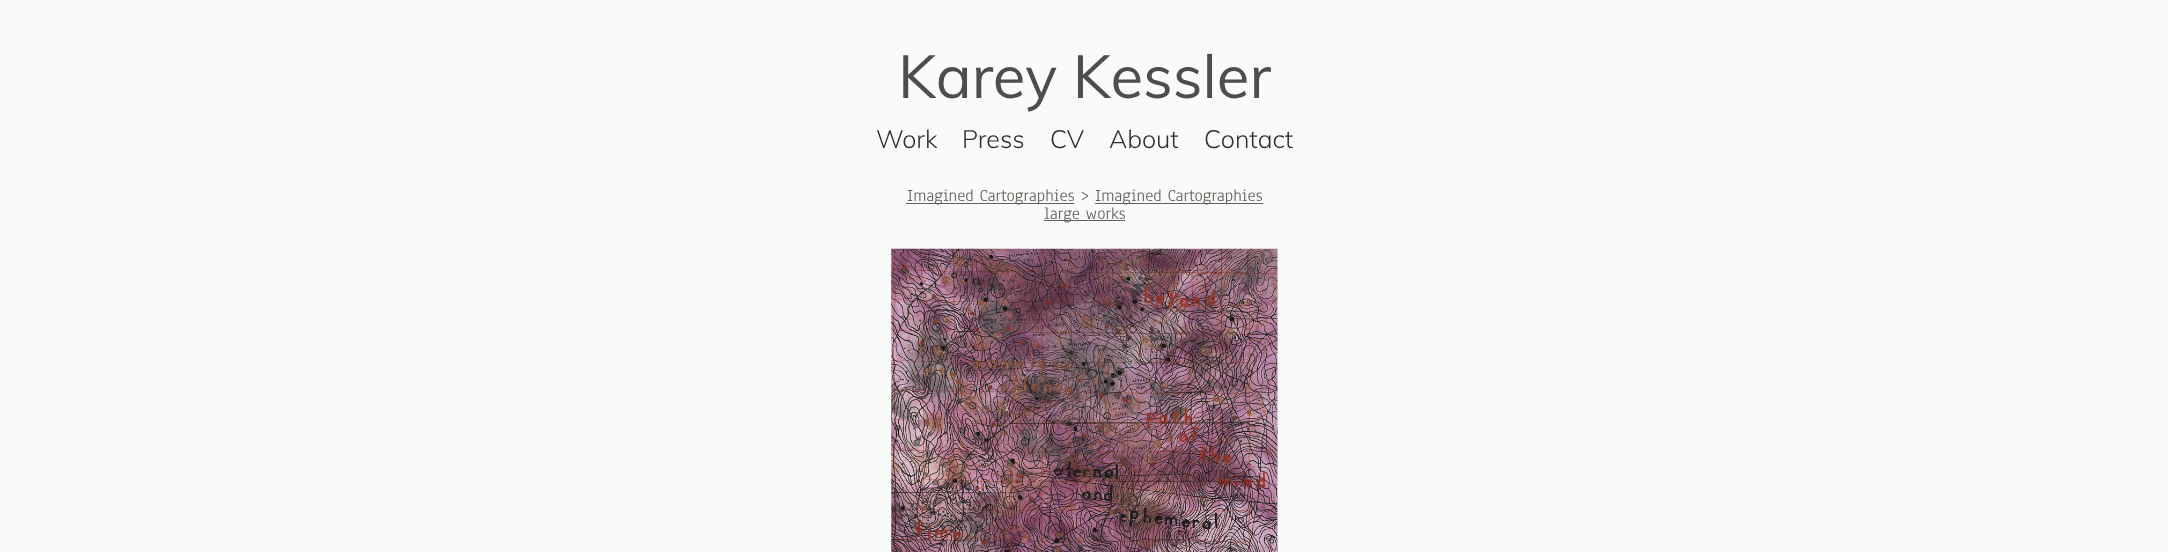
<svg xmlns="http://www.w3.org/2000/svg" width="2168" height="552">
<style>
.a{font:60px Muli;fill:#4d4d4d}
.b{font:300 25px Muli;fill:#342d2d}
.c{font:17.5px Anaheim;fill:#665c5c}
</style>
<rect width="100%" height="100%" fill="#f9fbf9"/>
<path fill="#665c5c" d="M906 203h168v1H906z"/>
<path fill="#665c5c" d="M1095 203h168v1H1095z"/>
<path fill="#665c5c" d="M1044 220h81v1H1044z"/>
<image href="1.png" x="891" y="248" width="387" height="304"/>
<text class="a" x="898" y="98">Karey Kessler</text>
<text class="b" x="876" y="148">Work</text>
<text class="b" x="962" y="148">Press</text>
<text class="b" x="1050" y="148">CV</text>
<text class="b" x="1109" y="148">About</text>
<text class="b" x="1204" y="148">Contact</text>
<text class="c" x="907" y="201">Imagined Cartographies &gt;</text>
<text class="c" x="1095" y="201">Imagined Cartographies</text>
<text class="c" x="1044" y="219">large works</text>
</svg>
